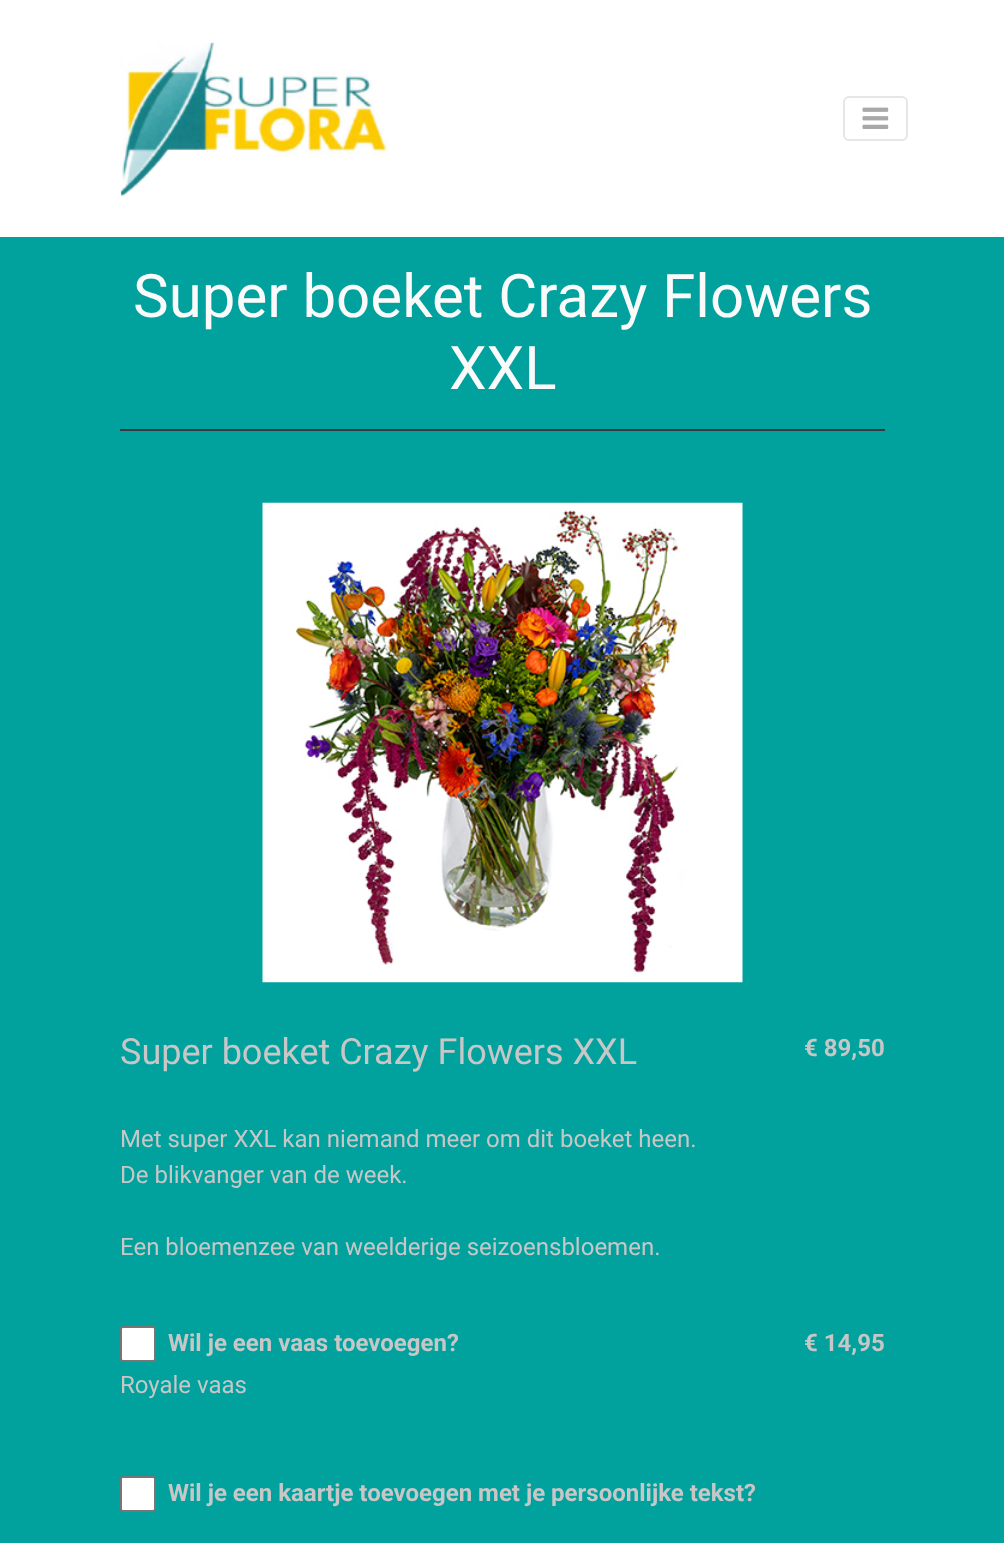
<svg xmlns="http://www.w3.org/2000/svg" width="1004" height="1543">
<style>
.a{font:60px Roboto;fill:#fafafa}
.b{font:36px Roboto;fill:#c7c7c7}
.c{font:24px Roboto;fill:#c7c7c7}
.d{font:bold 24px Roboto;fill:#c7c7c7}
</style>
<rect width="100%" height="100%" fill="#01a19e"/>
<path fill="#fff" d="M0 0h1004v237H0z"/>
<image href="1.png" x="120" y="42" width="268" height="154"/>
<rect fill="none" stroke="#e6e6e6" stroke-width="2" x="844" y="97" width="63" height="43" rx="5"/>
<image href="2.png" x="862" y="107" width="27" height="22"/>
<path fill="#343a40" d="M120 429h765v2H120z"/>
<image href="3.png" x="262" y="502" width="481" height="481"/>
<rect fill="#fff" stroke="#767676" stroke-width="2" x="121" y="1327" width="34" height="34" rx="2"/>
<rect fill="#fff" stroke="#767676" stroke-width="2" x="121" y="1477" width="34" height="34" rx="2"/>
<text class="a" x="133" y="317">Super boeket Crazy Flowers</text>
<text class="a" x="449" y="389">XXL</text>
<text class="b" x="120" y="1064">Super boeket Crazy Flowers XXL</text>
<text class="c" x="120" y="1147">Met super XXL kan niemand meer om dit boeket heen.</text>
<text class="c" x="120" y="1183">De blikvanger van de week.</text>
<text class="c" x="120" y="1255">Een bloemenzee van weelderige seizoensbloemen.</text>
<text class="d" x="804" y="1056">€ 89,50</text>
<text class="d" x="168" y="1351">Wil je een vaas toevoegen?</text>
<text class="c" x="120" y="1393">Royale vaas</text>
<text class="d" x="804" y="1351">€ 14,95</text>
<text class="d" x="168" y="1501">Wil je een kaartje toevoegen met je persoonlijke tekst?</text>
</svg>
